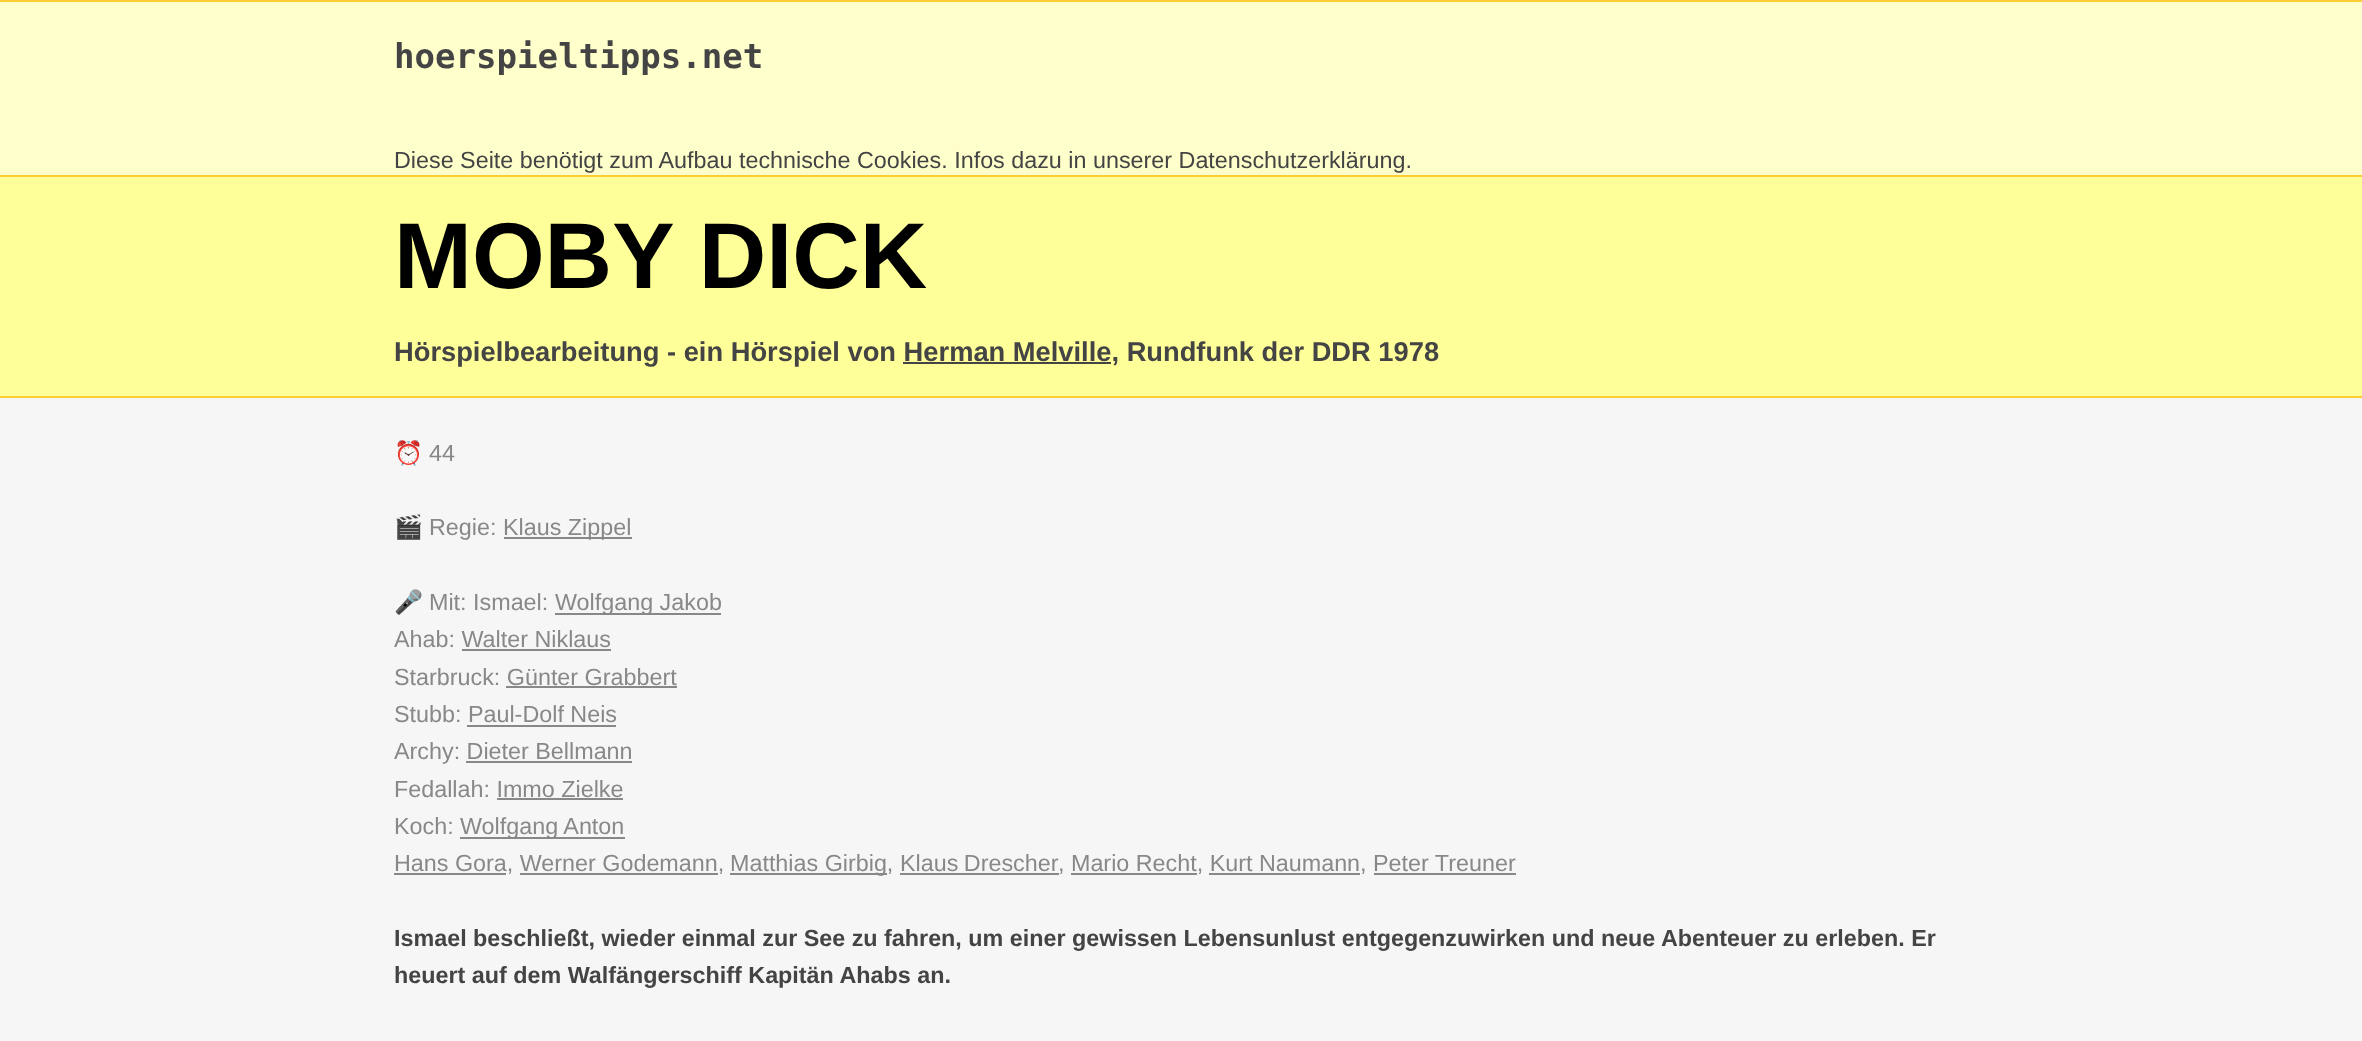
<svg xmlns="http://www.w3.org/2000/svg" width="2362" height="1041">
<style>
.a{font:bold 34.1px DejaVu Sans Mono;fill:#444}
.b{font:23.33px Liberation Sans;fill:#444}
.c{font:bold 93.5px Liberation Sans;fill:#000}
.d{font:bold 27.3px Liberation Sans;fill:#444}
.e{font:23.33px Noto Color Emoji;fill:#888}
.f{font:23.33px Liberation Sans;fill:#888}
.g{font:bold 23.33px Liberation Sans;fill:#444}
</style>
<rect width="100%" height="100%" fill="#f6f6f6"/>
<path fill="#ffc" d="M0 2h2362v173H0z"/>
<path fill="#fc3" d="M0 0h2362v2H0z"/>
<path fill="#fc3" d="M0 175h2362v2H0z"/>
<path fill="#ff9" d="M0 177h2362v219H0z"/>
<path fill="#fc3" d="M0 396h2362v2H0z"/>
<path fill="#444" d="M903 362h208v2H903z"/>
<path fill="#888" d="M504 537h128v2H504z"/>
<path fill="#888" d="M555 613h166v2H555z"/>
<path fill="#888" d="M462 649h149v2H462z"/>
<path fill="#888" d="M506 686h171v2H506z"/>
<path fill="#888" d="M467 725h149v2H467z"/>
<path fill="#888" d="M466 761h166v2H466z"/>
<path fill="#888" d="M497 798h126v2H497z"/>
<path fill="#888" d="M460 837h165v2H460z"/>
<path fill="#888" d="M394 873h112v2H394z"/>
<path fill="#888" d="M730 873h157v2H730z"/>
<path fill="#888" d="M900 873h159v2H900z"/>
<path fill="#888" d="M520 873h198v2H520z"/>
<path fill="#888" d="M1071 873h126v2H1071z"/>
<path fill="#888" d="M1209 873h151v2H1209z"/>
<path fill="#888" d="M1374 873h142v2H1374z"/>
<text class="a" x="394" y="68">hoerspieltipps.net</text>
<text class="b" x="394" y="168">Diese Seite benötigt zum Aufbau technische Cookies. Infos dazu in unserer Datenschutzerklärung.</text>
<text class="c" x="394" y="288">MOBY DICK</text>
<text class="d" x="394" y="361">Hörspielbearbeitung - ein Hörspiel von Herman Melville, Rundfunk der DDR 1978</text>
<text class="e" x="394" y="461">⏰</text>
<text class="f" x="429" y="461">44</text>
<text class="e" x="394" y="535">🎬</text>
<text class="f" x="429" y="535">Regie:</text>
<text class="f" x="503" y="535">Klaus Zippel</text>
<text class="e" x="394" y="610">🎤</text>
<text class="f" x="429" y="610">Mit: Ismael:</text>
<text class="f" x="555" y="610">Wolfgang Jakob</text>
<text class="f" x="394" y="647">Ahab: Walter Niklaus</text>
<text class="f" x="394" y="685">Starbruck: Günter Grabbert</text>
<text class="f" x="394" y="722">Stubb: Paul-Dolf Neis</text>
<text class="f" x="394" y="759">Archy: Dieter Bellmann</text>
<text class="f" x="394" y="797">Fedallah: Immo Zielke</text>
<text class="f" x="394" y="834">Koch:</text>
<text class="f" x="460" y="834">Wolfgang Anton</text>
<text class="f" x="394" y="871">Hans Gora, Werner Godemann,</text>
<text class="f" x="730" y="871">Matthias Girbig,</text>
<text class="f" x="900" y="871" word-spacing="-1">Klaus Drescher</text>
<text class="f" x="1058" y="871">, Mario Recht, Kurt Naumann, Peter Treuner</text>
<text class="g" x="394" y="946">Ismael beschließt, wieder einmal zur See zu fahren, um einer gewissen Lebensunlust entgegenzuwirken und neue Abenteuer zu erleben. Er</text>
<text class="g" x="394" y="983">heuert auf dem Walfängerschiff Kapitän Ahabs an.</text>
</svg>
